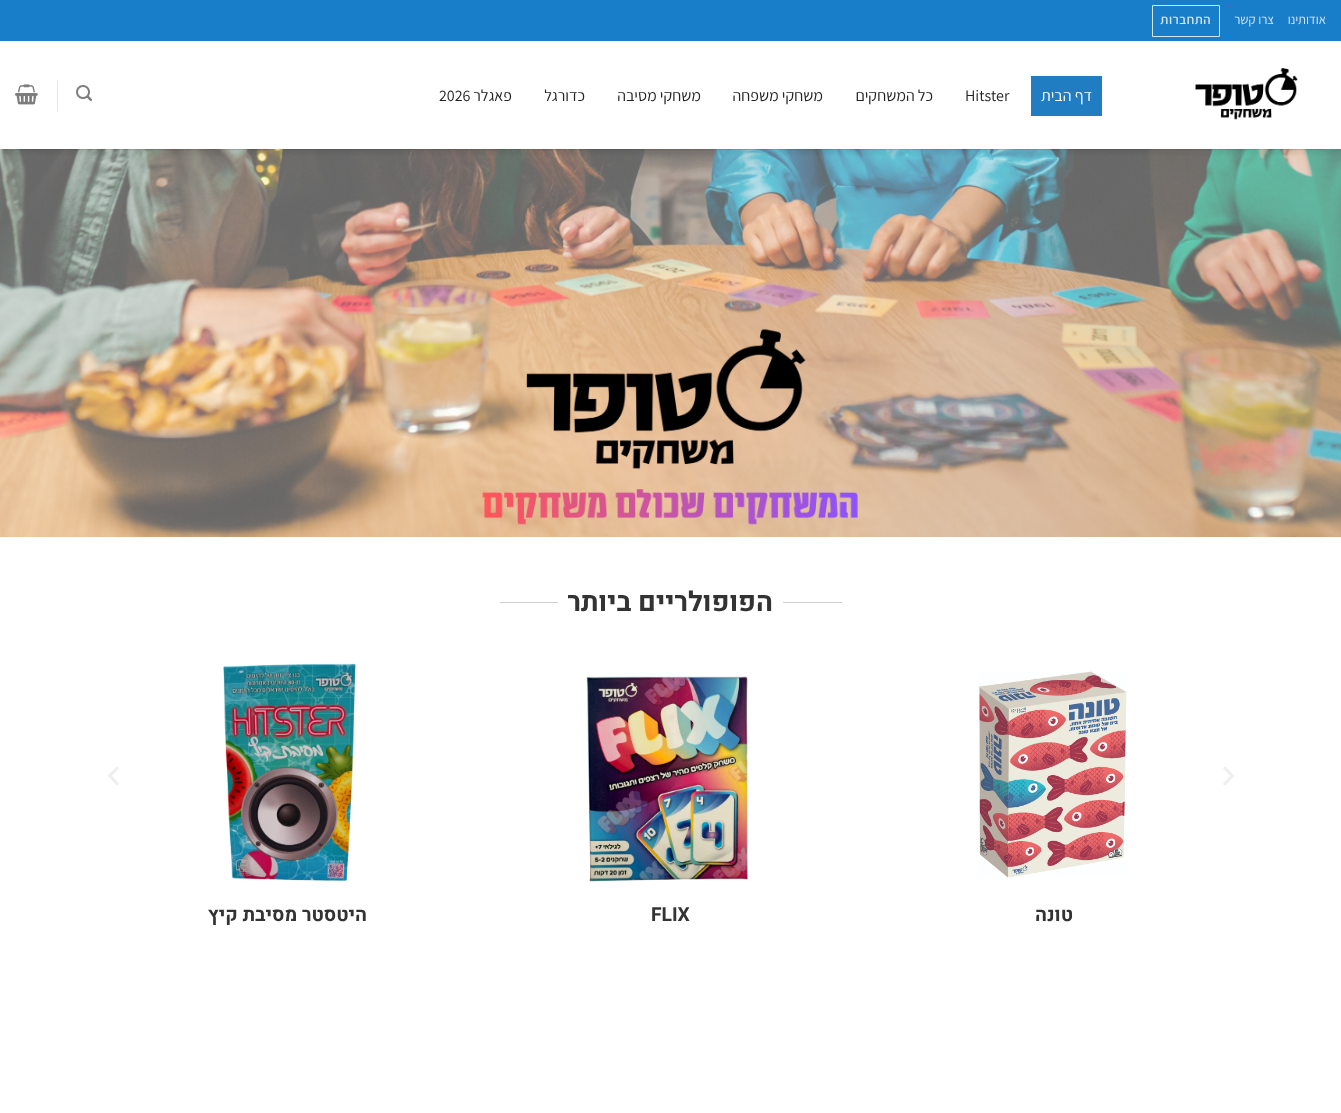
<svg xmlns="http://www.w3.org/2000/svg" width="1341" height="1113">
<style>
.a{font:13px Assistant;direction:rtl;fill:#d1e5f4}
.b{font:600 13px Assistant;letter-spacing:0.5px;direction:rtl;fill:#d1e5f4}
.c{font:16px Assistant;direction:rtl;fill:#fff}
.d{font:16px Assistant;fill:#222}
.e{font:16px Assistant;direction:rtl;fill:#222}
.f{font:bold 27.25px Heebo;direction:rtl;fill:#333}
.g{font:bold 19.25px Heebo;direction:rtl;fill:#333}
.h{font:bold 19.25px Heebo;fill:#333}
</style>
<defs>
<clipPath id="clip1"><path d="M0 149h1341v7H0z"/></clipPath>
</defs>
<rect width="100%" height="100%" fill="#fff"/>
<image href="4.png" x="0" y="149" width="1341" height="388"/>
<g clip-path="url(#clip1)">
<path fill="#00000026" filter="blur(5px)" d="M1 1h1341v149H1z"/>
</g>
<path fill="#197ec9" d="M0 0h1341v41H0z"/>
<path fill="none" stroke="#d1e5f4" d="M1152.5 5.5h67v31H1152.5z"/>
<image href="1.png" x="1195" y="68" width="103" height="52"/>
<path fill="#217dc1" d="M1031 76h71v40H1031z"/>
<image href="2.png" x="76" y="85" width="16" height="16"/>
<path fill="#e6e6e6" d="M57 81h1v30H57z"/>
<image href="3.png" x="15" y="84" width="23" height="21"/>
<path fill="#2222221a" d="M15 149h1311v1H15z"/>
<path fill="#cfcfcf" d="M783 602h59v1H783z"/>
<path fill="#cfcfcf" d="M500 602h58v1H500z"/>
<image href="5.png" x="1223" y="766" width="11" height="20"/>
<image href="6.png" x="108" y="766" width="11" height="20"/>
<image href="7.png" x="978" y="671" width="149" height="207"/>
<image href="8.png" x="586" y="676" width="163" height="206"/>
<image href="9.png" x="223" y="663" width="133" height="218"/>
<text class="a" x="1326" y="24">אודותינו</text>
<text class="a" x="1274" y="24">צרו קשר</text>
<text class="b" x="1211" y="24">התחברות</text>
<text class="c" x="1092" y="101">דף הבית</text>
<text class="d" x="965" y="101">Hitster</text>
<text class="e" x="933" y="101">כל המשחקים</text>
<text class="e" x="823" y="101">משחקי משפחה</text>
<text class="e" x="701" y="101">משחקי מסיבה</text>
<text class="e" x="585" y="101">כדורגל</text>
<text class="e" x="512" y="101">פאגלר</text>
<text class="d" x="439" y="101">2026</text>
<text class="f" x="773" y="611">הפופולריים ביותר</text>
<text class="g" x="1073" y="921">טונה</text>
<text class="h" x="651" y="921">FLIX</text>
<text class="g" x="367" y="921">היטסטר מסיבת קיץ</text>
</svg>
